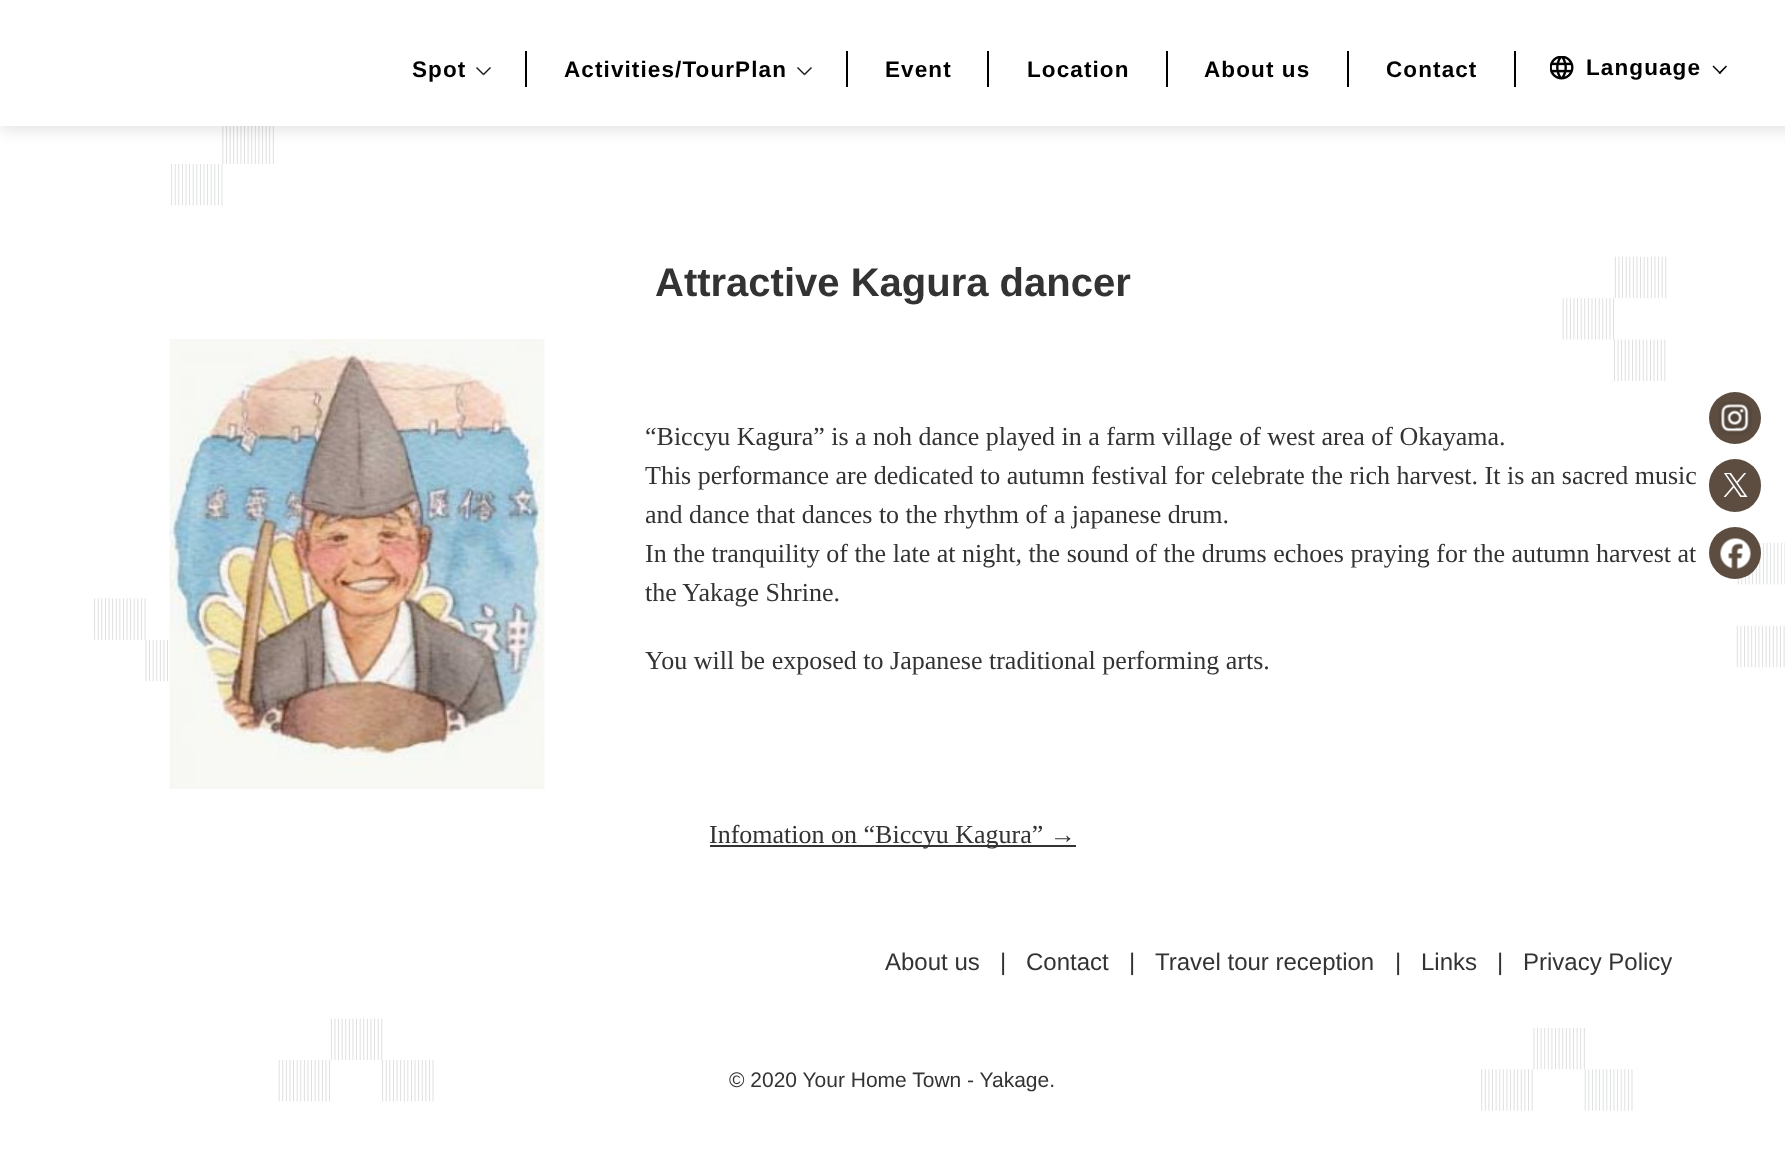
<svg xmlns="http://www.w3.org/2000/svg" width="1785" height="1151">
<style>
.a{font:bold 22.5px Liberation Sans;letter-spacing:1.1px;fill:#000}
.b{font:bold 40px Liberation Sans;fill:#333}
.c{font:26px Liberation Serif;fill:#333}
.d{font:24px Liberation Sans;fill:#333}
.e{font:21px Liberation Sans;fill:#333}
</style>
<rect width="100%" height="100%" fill="#fff"/>
<image href="1.png" x="94" y="126" width="1691" height="985"/>
<path fill="#0000001a" filter="blur(7.5px)" d="M0 5h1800v126H0z"/>
<path fill="#fff" d="M0 0h1785v126H0z"/>
<path fill="#1a1a1a" d="M491 68l-7.5 7.5v-2l6.5-6.5z"/>
<path fill="#000000e6" d="M483.5 75.5l-7.5-7.5l1-1l6.5 6.5z"/>
<path fill="#000" d="M525 51h2v36H525z"/>
<path fill="#1a1a1a" d="M812 68l-7.5 7.5v-2l6.5-6.5z"/>
<path fill="#000000e6" d="M804.5 75.5l-7.5-7.5l1-1l6.5 6.5z"/>
<path fill="#000" d="M846 51h2v36H846z"/>
<path fill="#000" d="M987 51h2v36H987z"/>
<path fill="#000" d="M1166 51h2v36H1166z"/>
<path fill="#000" d="M1347 51h2v36H1347z"/>
<path fill="#000" d="M1514 51h2v36H1514z"/>
<circle fill="#5d4d40" cx="1735" cy="418" r="26"/>
<image href="2.png" x="1718" y="401" width="34" height="34"/>
<rect fill="#5d4d40" x="1709" y="459" width="52" height="53" rx="26"/>
<image href="3.png" x="1724" y="473" width="24" height="24"/>
<circle fill="#5d4d40" cx="1735" cy="553" r="26"/>
<image href="4.png" x="1720" y="538" width="31" height="31"/>
<image href="5.png" x="1550" y="56" width="24" height="24"/>
<path fill="#000" d="M1726 65.5l1 1l-7 7.5l-1.5-1z"/>
<path fill="#000" d="M1713.5 65.5l7.5 7.5l-1 1l-7.5-7.5z"/>
<image href="6.png" x="169" y="339" width="376" height="450"/>
<path fill="#333" d="M710 845h366v2H710z"/>
<text class="a" x="412" y="77">Spot</text>
<text class="a" x="564" y="77">Activities/TourPlan</text>
<text class="a" x="885" y="77">Event</text>
<text class="a" x="1027" y="77">Location</text>
<text class="a" x="1204" y="77">About us</text>
<text class="a" x="1386" y="77">Contact</text>
<text class="a" x="1586" y="75">Language</text>
<text class="b" x="655" y="296">Attractive Kagura dancer</text>
<text class="c" x="645" y="445">“Biccyu Kagura” is a noh dance played in a farm village of west area of Okayama.</text>
<text class="c" x="645" y="484">This performance are dedicated to autumn festival for celebrate the rich harvest. It is an sacred music</text>
<text class="c" x="645" y="523">and dance that dances to the rhythm of a japanese drum.</text>
<text class="c" x="645" y="562">In the tranquility of the late at night, the sound of the drums echoes praying for the autumn harvest at</text>
<text class="c" x="645" y="601">the Yakage Shrine.</text>
<text class="c" x="645" y="669">You will be exposed to Japanese traditional performing arts.</text>
<text class="c" x="709" y="843">Infomation on “Biccyu Kagura” →</text>
<text class="d" x="885" y="970">About us</text>
<text class="d" x="1000" y="970">|</text>
<text class="d" x="1026" y="970">Contact</text>
<text class="d" x="1129" y="970">|</text>
<text class="d" x="1155" y="970">Travel tour reception</text>
<text class="d" x="1395" y="970">|</text>
<text class="d" x="1421" y="970">Links</text>
<text class="d" x="1497" y="970">|</text>
<text class="d" x="1523" y="970">Privacy Policy</text>
<text class="e" x="729" y="1087">© 2020 Your Home Town - Yakage.</text>
</svg>
